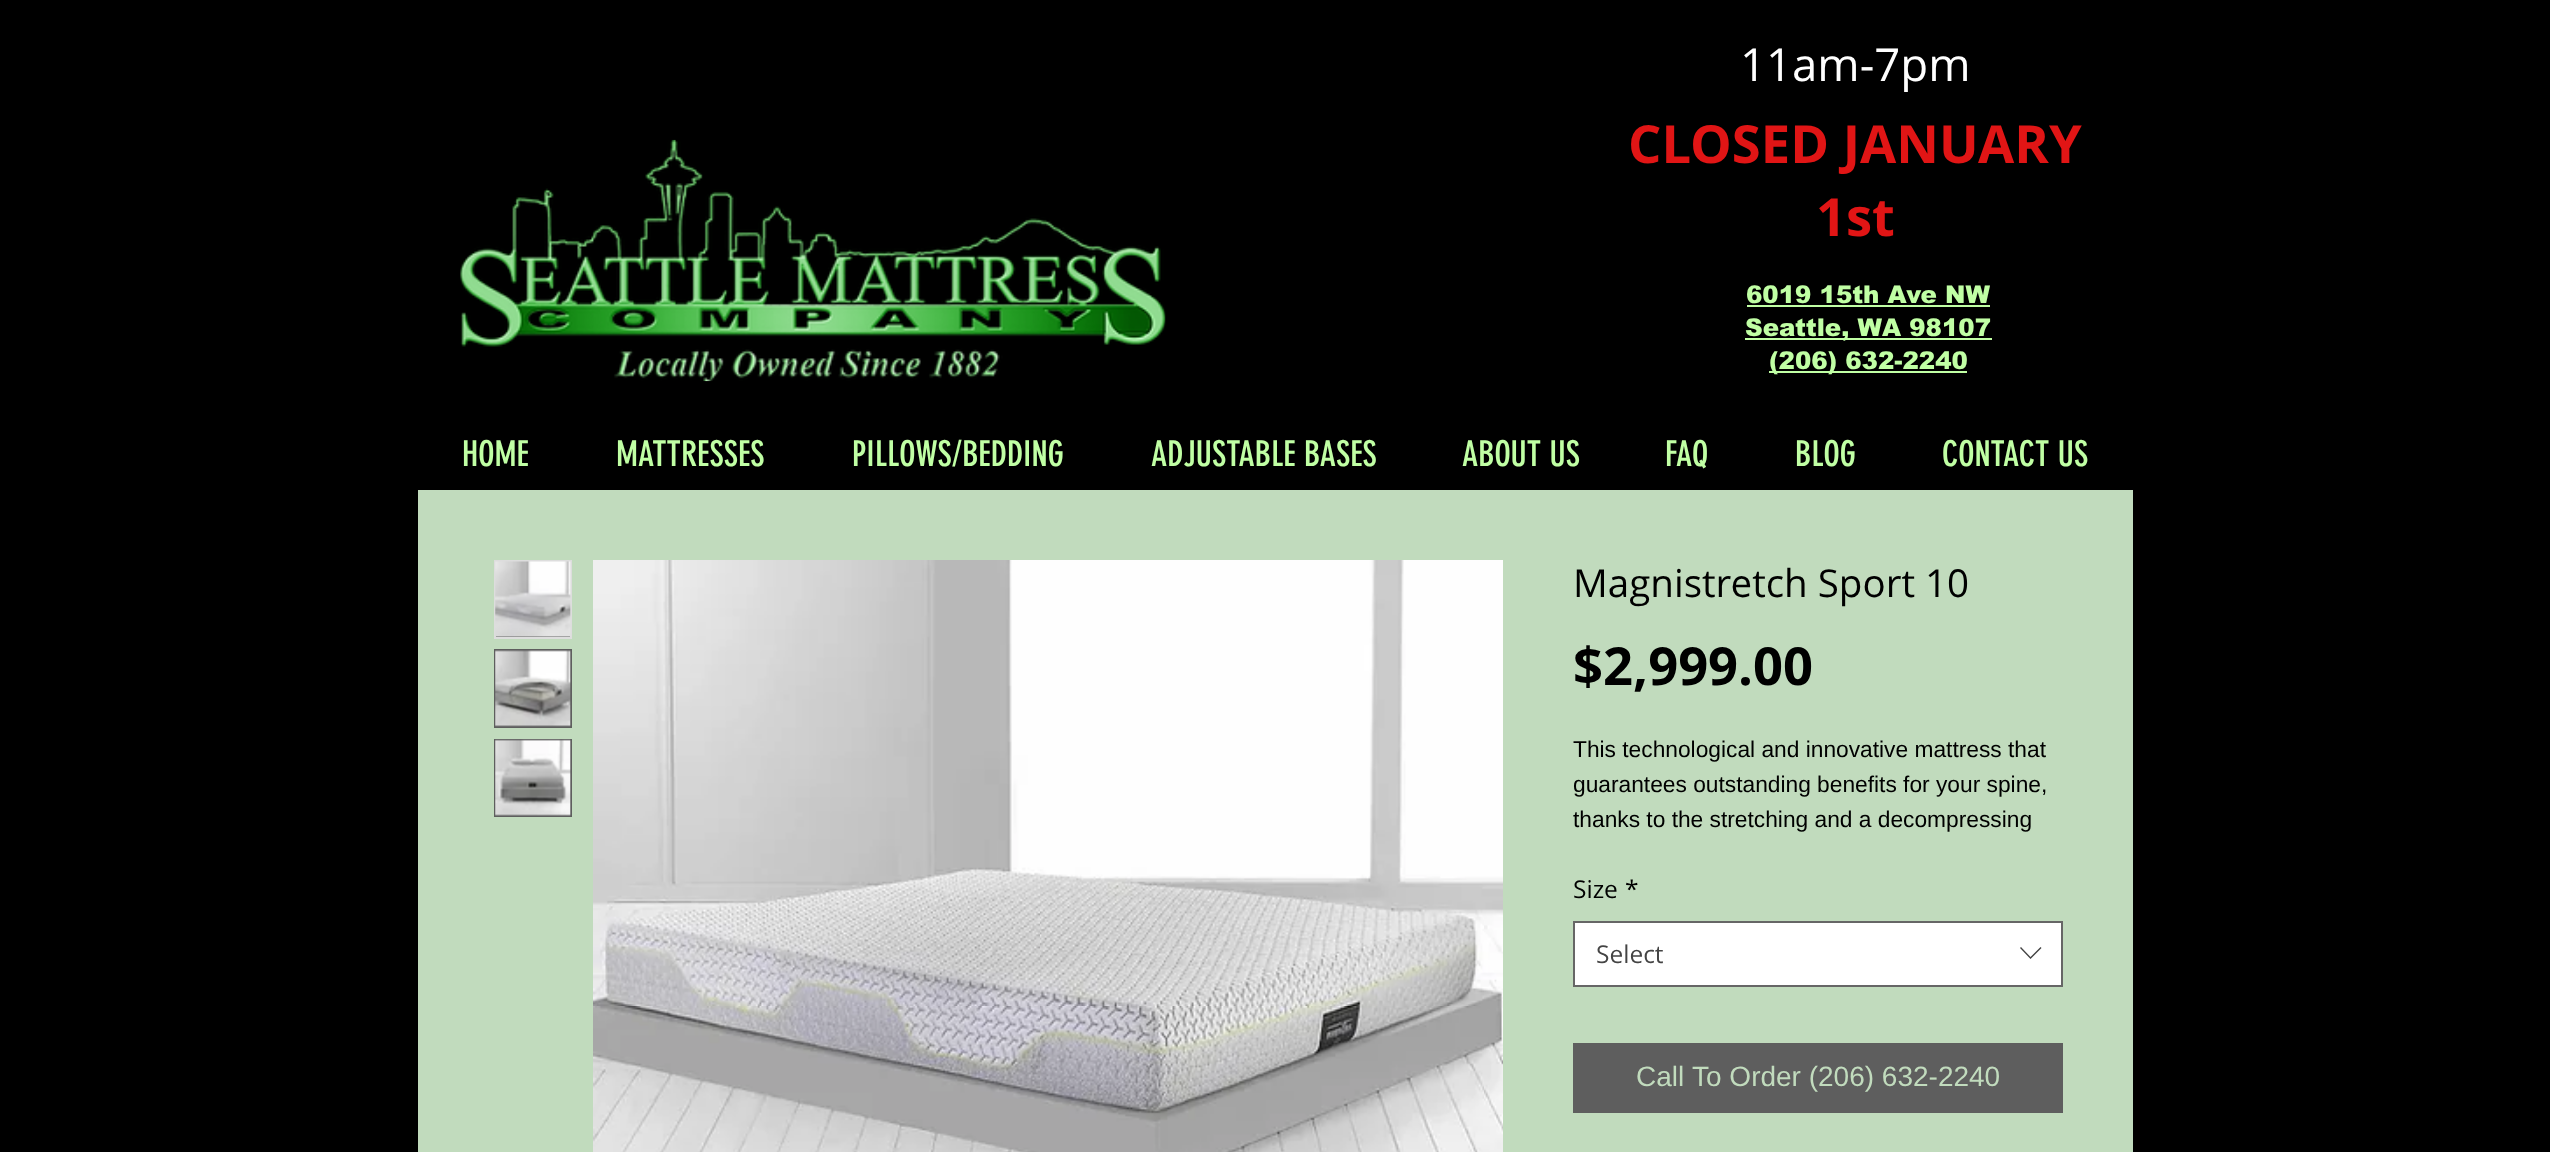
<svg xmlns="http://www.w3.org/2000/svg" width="2550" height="1152">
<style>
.a{font:45.5px Open Sans;fill:#fff}
.b{font:bold 52.5px Open Sans;fill:#e11515}
.c{font:900 24.5px arial;fill:#c0ffa4}
.d{font:35px 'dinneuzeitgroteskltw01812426';fill:#c0ffa4}
.e{font:38.5px Open Sans;fill:#000}
.f{font:bold 52.5px Open Sans;fill:#000}
.g{font:22.75px Liberation Sans;fill:#000}
.h{font:24.5px Open Sans;fill:#000}
.i{font:24.5px Open Sans;fill:#444}
.j{font:28px Liberation Sans;fill:#c1dbbd}
</style>
<rect width="100%" height="100%" fill="#000"/>
<image href="1.png" x="460" y="139" width="706" height="243"/>
<path fill="#c0ffa4" d="M1747 305h243v2H1747z"/>
<path fill="#c0ffa4" d="M1745 338h247v2H1745z"/>
<path fill="#c0ffa4" d="M1769 371h198v2H1769z"/>
<path fill="#c1dbbd" d="M418 490h1715v662H418z"/>
<path fill="#5e5e5e" d="M496 636h74v1H496z"/>
<path fill="none" stroke="#ddd" stroke-width="2" d="M495 561h76v77H495z"/>
<image href="2.png" x="495" y="561" width="76" height="76"/>
<path fill="#5e5e5e" d="M494 649h78v79H494z"/>
<image href="3.png" x="495" y="650" width="76" height="77"/>
<path fill="#5e5e5e" d="M494 739h78v78H494z"/>
<image href="4.png" x="495" y="739" width="76" height="77"/>
<image href="5.png" x="593" y="560" width="910" height="592"/>
<path fill="#fff" stroke="#666" stroke-width="2" d="M1574 922h488v64H1574z"/>
<path fill="#444" fill-rule="evenodd" d="M2040.5 947l1 1l-11 11l-10.5-11l1-1l9.5 10z"/>
<path fill="#5e5e5e" d="M1573 1043h490v70H1573z"/>
<text class="a" x="1740" y="81">11am-7pm</text>
<text class="b" x="1628" y="163">CLOSED JANUARY</text>
<text class="b" x="1816" y="236">1st</text>
<text class="c" x="1746" y="303">6019 15th Ave NW</text>
<text class="c" x="1745" y="336">Seattle, WA 98107</text>
<text class="c" x="1769" y="369">(206) 632-2240</text>
<text class="d" x="462" y="466">HOME</text>
<text class="d" x="616" y="466">MATTRESSES</text>
<text class="d" x="852" y="466">PILLOWS/BEDDING</text>
<text class="d" x="1151" y="466">ADJUSTABLE BASES</text>
<text class="d" x="1462" y="466">ABOUT US</text>
<text class="d" x="1665" y="466">FAQ</text>
<text class="d" x="1795" y="466">BLOG</text>
<text class="d" x="1942" y="466">CONTACT US</text>
<text class="e" x="1573" y="597">Magnistretch Sport 10</text>
<text class="f" x="1573" y="685">$2,999.00</text>
<text class="g" x="1573" y="757">This technological and innovative mattress that</text>
<text class="g" x="1573" y="792">guarantees outstanding benefits for your spine,</text>
<text class="g" x="1573" y="827">thanks to the stretching and a decompressing</text>
<text class="h" x="1573" y="898">Size</text>
<text class="h" x="1625" y="898">*</text>
<text class="i" x="1596" y="963">Select</text>
<text class="j" x="1636" y="1086">Call</text>
<text class="j" x="1692" y="1086">To Order (206) 632-2240</text>
</svg>
